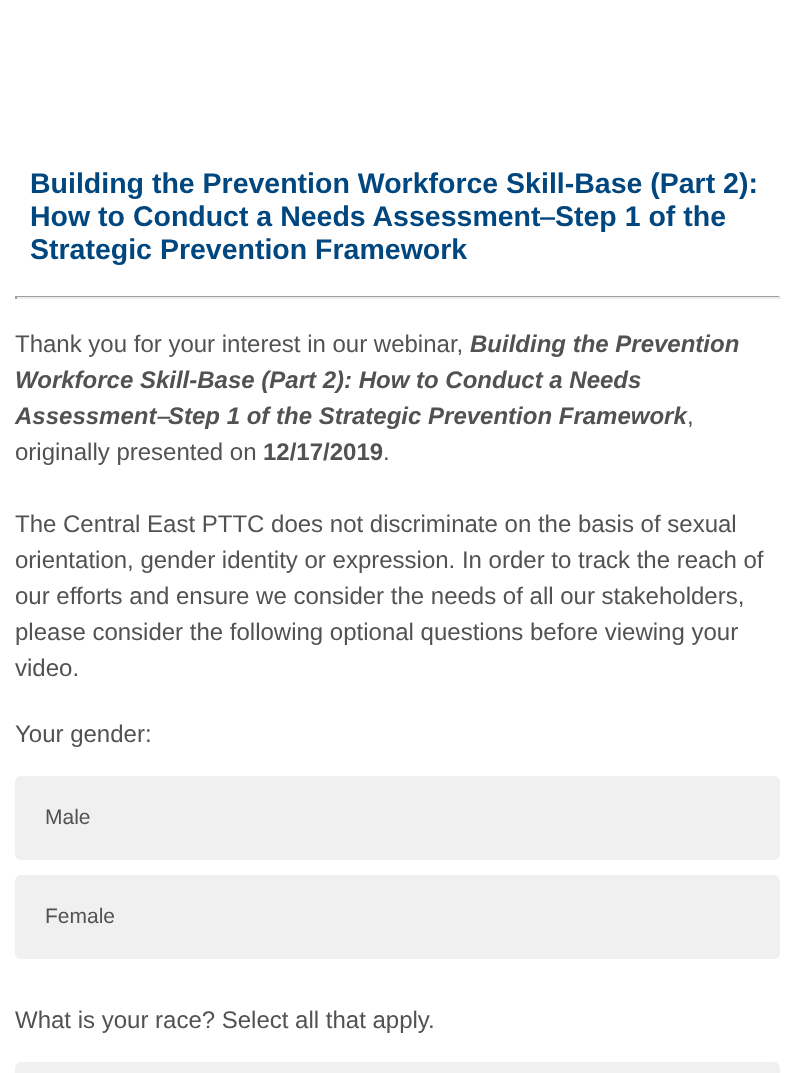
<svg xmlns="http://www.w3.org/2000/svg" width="795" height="1073">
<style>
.a{font:bold 28.5px Liberation Sans;fill:#00467f}
.b{font:bold 28.5px FreeSans;fill:#00467f}
.c{font:24px Liberation Sans;fill:#525252}
.d{font:italic bold 24px Liberation Sans;fill:#525252}
.e{font:italic bold 24px FreeSans;fill:#525252}
.f{font:bold 24px Liberation Sans;fill:#525252}
.g{font:21px Liberation Sans;fill:#525252}
</style>
<rect width="100%" height="100%" fill="#fff"/>
<path fill="#9f9f9f" d="M15 296h765v1H15z"/>
<path fill="#eee" d="M779 296h2v3H779z"/>
<path fill="#eee" d="M15 297h765v2H15z"/>
<path fill="#9f9f9f" d="M15 296h2v3H15z"/>
<rect fill="#f0f0f0" x="15" y="776" width="765" height="84" rx="6"/>
<rect fill="#f0f0f0" x="15" y="875" width="765" height="84" rx="6"/>
<rect fill="#f0f0f0" x="15" y="1062" width="765" height="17" rx="6"/>
<text class="a" x="30" y="193">Building the Prevention Workforce Skill-Base (Part 2):</text>
<text class="a" x="30" y="226">How to Conduct a Needs Assessment</text>
<text class="b" x="540" y="226">⎯</text>
<text class="a" x="555" y="226">Step 1 of the</text>
<text class="a" x="30" y="259">Strategic Prevention Framework</text>
<text class="c" x="15" y="352">Thank you for your interest in our webinar,</text>
<text class="d" x="470" y="352">Building the Prevention</text>
<text class="d" x="15" y="388">Workforce Skill-Base (Part 2): How to Conduct a Needs</text>
<text class="d" x="15" y="424">Assessment</text>
<text class="e" x="156" y="424">⎯</text>
<text class="d" x="168" y="424">Step 1 of the Strategic Prevention Framework</text>
<text class="c" x="687" y="424">,</text>
<text class="c" x="15" y="460">originally presented on</text>
<text class="f" x="263" y="460">12/17/2019</text>
<text class="c" x="383" y="460">.</text>
<text class="c" x="15" y="532">The Central East PTTC does not discriminate on the basis of sexual</text>
<text class="c" x="15" y="568">orientation, gender identity or expression. In order to track the reach of</text>
<text class="c" x="15" y="604">our efforts and ensure we consider the needs of all our stakeholders,</text>
<text class="c" x="15" y="640">please consider the following optional questions before viewing your</text>
<text class="c" x="15" y="676">video.</text>
<text class="c" x="15" y="742">Your gender:</text>
<text class="g" x="45" y="824">Male</text>
<text class="g" x="45" y="923">Female</text>
<text class="c" x="15" y="1028">What is your race? Select all that apply.</text>
</svg>
